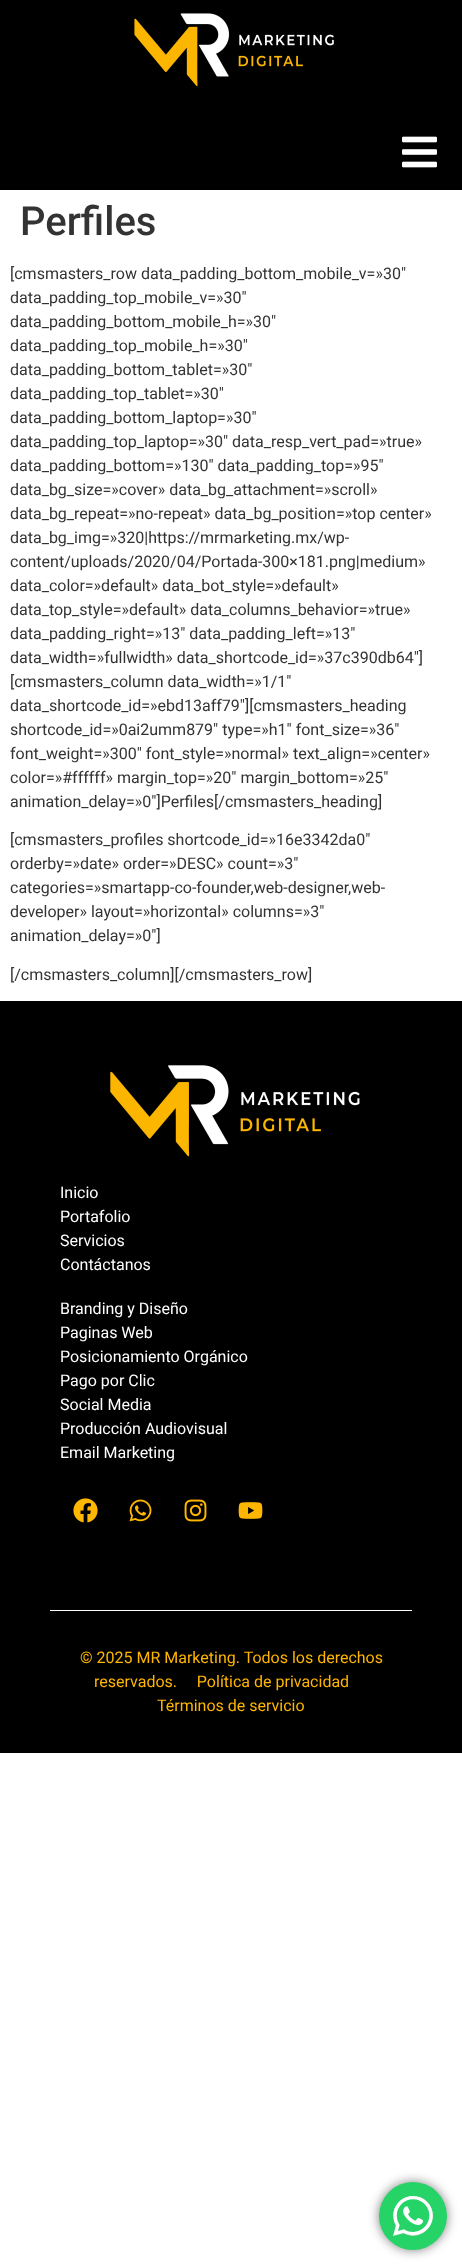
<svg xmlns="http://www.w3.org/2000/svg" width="462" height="2265">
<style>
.a{font:500 40px Roboto;fill:#333}
.b{font:16px Roboto;fill:#333}
.c{font:16px Roboto;fill:#fff}
.d{font:16px Roboto;fill:#ffb600}
</style>
<rect width="100%" height="100%" fill="#fff"/>
<path fill="#000" d="M0 0h462v190H0z"/>
<image href="1.png" x="134" y="13" width="200" height="74"/>
<image href="2.png" x="402" y="136" width="35" height="32"/>
<path fill="#000" d="M0 1001h462v752H0z"/>
<image href="3.png" x="110" y="1065" width="250" height="92"/>
<image href="4.png" x="73" y="1498" width="25" height="25"/>
<image href="5.png" x="129" y="1499" width="23" height="23"/>
<image href="6.png" x="184" y="1499" width="23" height="23"/>
<image href="7.png" x="238" y="1502" width="25" height="17"/>
<path fill="#fff" d="M50 1610h362v1H50z"/>
<rect fill="#00000080" filter="blur(5.5px)" x="379" y="2182" width="68" height="68" rx="34"/>
<circle fill="#25d366" cx="413" cy="2216" r="34"/>
<image href="8.png" x="393" y="2196" width="40" height="40"/>
<text class="a" x="20" y="235">Perfiles</text>
<text class="b" x="10" y="279">[cmsmasters_row data_padding_bottom_mobile_v=»30″</text>
<text class="b" x="10" y="303">data_padding_top_mobile_v=»30″</text>
<text class="b" x="10" y="327">data_padding_bottom_mobile_h=»30″</text>
<text class="b" x="10" y="351">data_padding_top_mobile_h=»30″</text>
<text class="b" x="10" y="375">data_padding_bottom_tablet=»30″</text>
<text class="b" x="10" y="399">data_padding_top_tablet=»30″</text>
<text class="b" x="10" y="423">data_padding_bottom_laptop=»30″</text>
<text class="b" x="10" y="447">data_padding_top_laptop=»30″ data_resp_vert_pad=»true»</text>
<text class="b" x="10" y="471">data_padding_bottom=»130″ data_padding_top=»95″</text>
<text class="b" x="10" y="495">data_bg_size=»cover» data_bg_attachment=»scroll»</text>
<text class="b" x="10" y="519">data_bg_repeat=»no-repeat» data_bg_position=»top center»</text>
<text class="b" x="10" y="543">data_bg_img=»320|https://mrmarketing.mx/wp-</text>
<text class="b" x="10" y="567">content/uploads/2020/04/Portada-300×181.png|medium»</text>
<text class="b" x="10" y="591">data_color=»default» data_bot_style=»default»</text>
<text class="b" x="10" y="615">data_top_style=»default» data_columns_behavior=»true»</text>
<text class="b" x="10" y="639">data_padding_right=»13″ data_padding_left=»13″</text>
<text class="b" x="10" y="663">data_width=»fullwidth» data_shortcode_id=»37c390db64″]</text>
<text class="b" x="10" y="687">[cmsmasters_column data_width=»1/1″</text>
<text class="b" x="10" y="711">data_shortcode_id=»ebd13aff79″][cmsmasters_heading</text>
<text class="b" x="10" y="735">shortcode_id=»0ai2umm879″ type=»h1″ font_size=»36″</text>
<text class="b" x="10" y="759">font_weight=»300″ font_style=»normal» text_align=»center»</text>
<text class="b" x="10" y="783">color=»#ffffff» margin_top=»20″ margin_bottom=»25″</text>
<text class="b" x="10" y="807">animation_delay=»0″]Perfiles[/cmsmasters_heading]</text>
<text class="b" x="10" y="845">[cmsmasters_profiles shortcode_id=»16e3342da0″</text>
<text class="b" x="10" y="869">orderby=»date» order=»DESC» count=»3″</text>
<text class="b" x="10" y="893">categories=»smartapp-co-founder,web-designer,web-</text>
<text class="b" x="10" y="917">developer» layout=»horizontal» columns=»3″</text>
<text class="b" x="10" y="941">animation_delay=»0″]</text>
<text class="b" x="10" y="980">[/cmsmasters_column][/cmsmasters_row]</text>
<text class="c" x="60" y="1198">Inicio</text>
<text class="c" x="60" y="1222">Portafolio</text>
<text class="c" x="60" y="1246">Servicios</text>
<text class="c" x="60" y="1270">Contáctanos</text>
<text class="c" x="60" y="1314">Branding y Diseño</text>
<text class="c" x="60" y="1338">Paginas Web</text>
<text class="c" x="60" y="1362">Posicionamiento Orgánico</text>
<text class="c" x="60" y="1386">Pago por Clic</text>
<text class="c" x="60" y="1410">Social Media</text>
<text class="c" x="60" y="1434">Producción Audiovisual</text>
<text class="c" x="60" y="1458">Email Marketing</text>
<text class="d" x="80" y="1663">© 2025 MR Marketing. Todos los derechos</text>
<text class="d" xml:space="preserve" x="94" y="1687">reservados.     Política de privacidad</text>
<text class="d" x="157" y="1711">Términos de servicio</text>
</svg>
